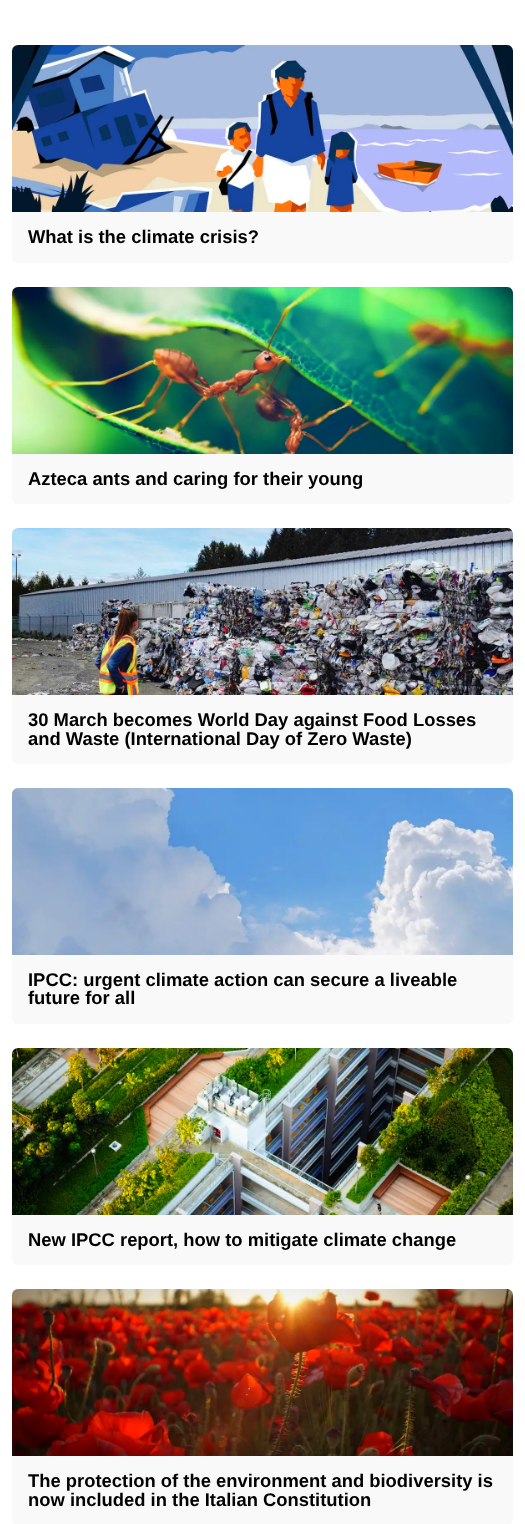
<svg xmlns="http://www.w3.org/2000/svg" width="525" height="1524">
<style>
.a{font:bold 18.4px Liberation Sans;fill:#000}
</style>
<rect width="100%" height="100%" fill="#fff"/>
<rect fill="#f9f9f9" x="12" y="45" width="501" height="218" rx="6"/>
<image href="1.png" x="12" y="45" width="501" height="167"/>
<rect fill="#f9f9f9" x="12" y="287" width="501" height="217" rx="6"/>
<image href="2.png" x="12" y="287" width="501" height="167"/>
<rect fill="#f9f9f9" x="12" y="528" width="501" height="236" rx="6"/>
<image href="3.png" x="12" y="528" width="501" height="167"/>
<rect fill="#f9f9f9" x="12" y="788" width="501" height="236" rx="6"/>
<image href="4.png" x="12" y="788" width="501" height="167"/>
<rect fill="#f9f9f9" x="12" y="1048" width="501" height="217" rx="6"/>
<image href="5.png" x="12" y="1048" width="501" height="167"/>
<rect fill="#f9f9f9" x="12" y="1289" width="501" height="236" rx="6"/>
<image href="6.png" x="12" y="1289" width="501" height="167"/>
<text class="a" x="28" y="243">What is the climate crisis?</text>
<text class="a" x="28" y="485">Azteca ants and caring for their young</text>
<text class="a" x="28" y="726">30 March becomes World Day against Food Losses</text>
<text class="a" x="28" y="745">and Waste (International Day of Zero Waste)</text>
<text class="a" x="28" y="986">IPCC: urgent climate action can secure a liveable</text>
<text class="a" x="28" y="1004">future for all</text>
<text class="a" x="28" y="1246">New IPCC report, how to mitigate climate change</text>
<text class="a" x="28" y="1487">The protection of the environment and biodiversity is</text>
<text class="a" x="28" y="1506">now included in the Italian Constitution</text>
</svg>
